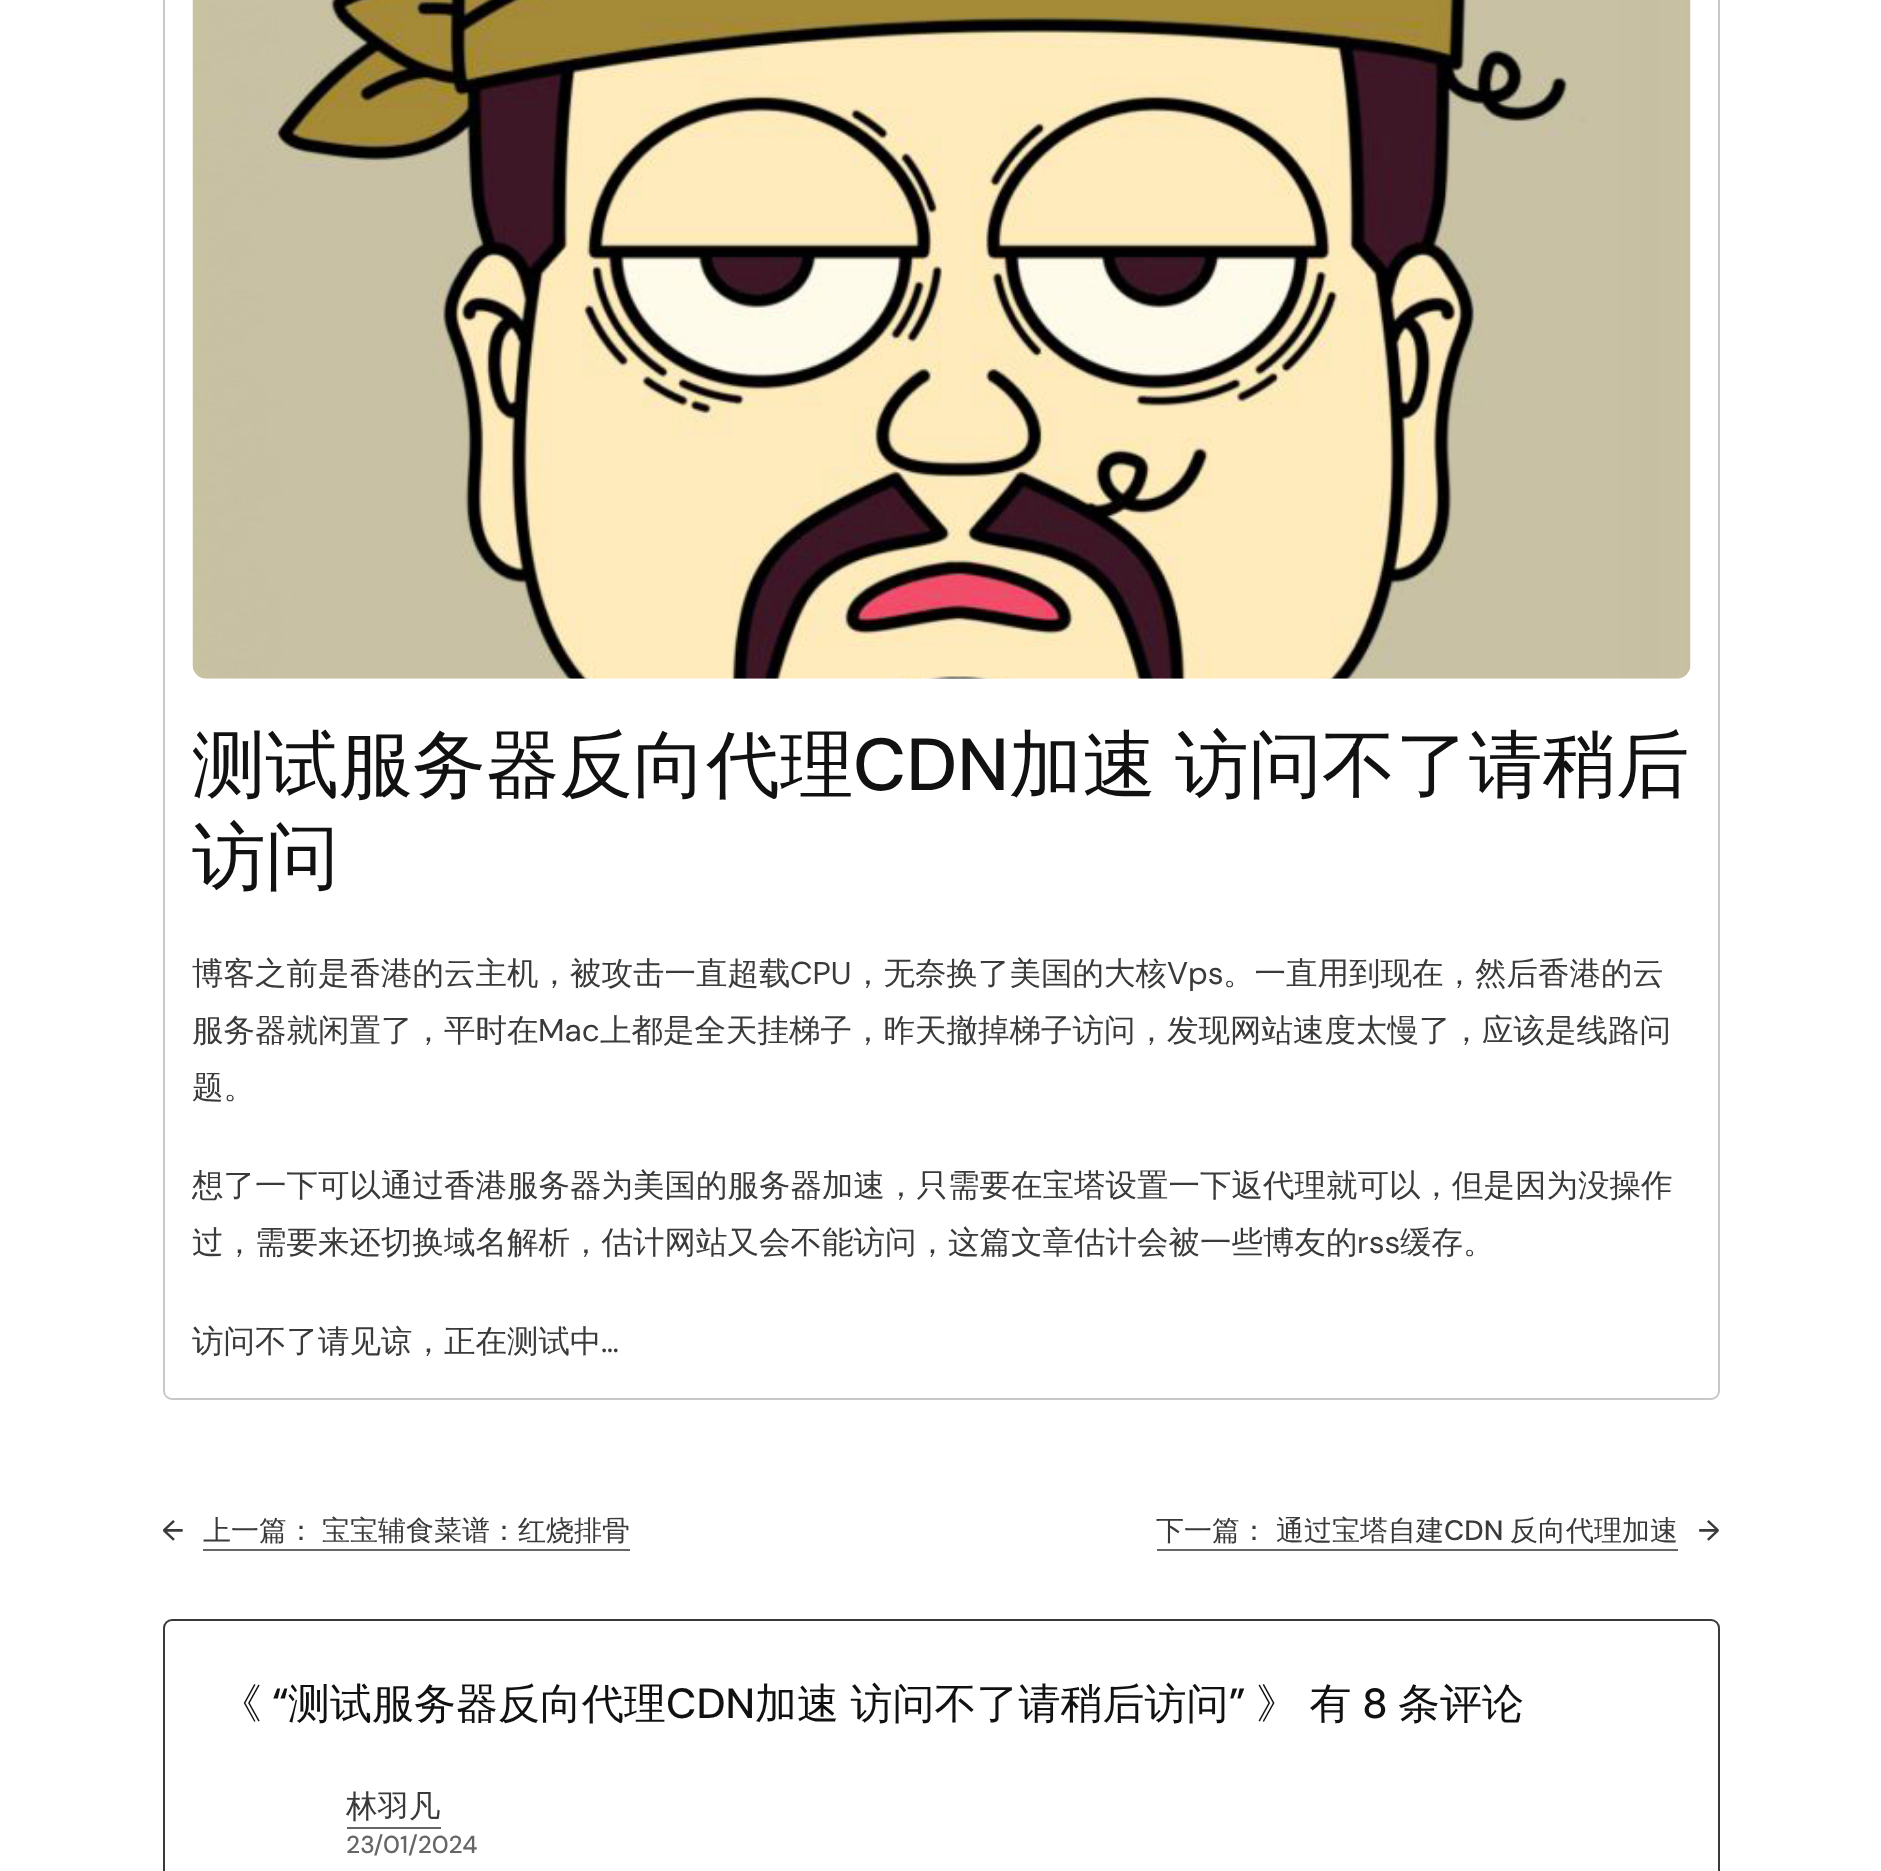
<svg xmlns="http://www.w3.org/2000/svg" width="1881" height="1871">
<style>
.a{font:500 73.5px WenQuanYi Zen Hei;fill:#111}
.b{font:500 73.5px DM Sans;fill:#111}
.c{font:500 31.5px WenQuanYi Zen Hei;fill:#3a3a3a}
.d{font:31.5px DM Sans;fill:#3a3a3a}
.e{font:500 28px DM Sans;fill:#3a3a3a}
.f{font:500 28px WenQuanYi Zen Hei;fill:#3a3a3a}
.g{font:500 42px WenQuanYi Zen Hei;fill:#111}
.h{font:500 42px DM Sans;fill:#111}
.i{font:500 24.5px DM Sans;fill:#666}
</style>
<rect width="100%" height="100%" fill="#fff"/>
<rect fill="none" stroke="#c8c8c8" stroke-width="2" x="164" y="-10" width="1555" height="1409" rx="8"/>
<image href="1.png" x="192" y="0" width="1499" height="679"/>
<path fill="#666" d="M203 1549h427v2H203z"/>
<path fill="#666" d="M1157 1549h521v2H1157z"/>
<rect fill="none" stroke="#3a3a3a" stroke-width="2" x="164" y="1620" width="1555" height="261" rx="8"/>
<path fill="#666" d="M347 1827h94v2H347z"/>
<text class="a" x="192" y="790">测试服务器反向代理</text>
<text class="b" x="853" y="790">CDN</text>
<text class="a" x="1009" y="790" word-spacing="-3">加速 访问不了请稍后</text>
<text class="a" x="192" y="882">访问</text>
<text class="c" x="192" y="984">博客之前是香港的云主机，被攻击一直超载</text>
<text class="d" x="790" y="984">CPU</text>
<text class="c" x="852" y="984">，无奈换了美国的大核</text>
<text class="d" x="1167" y="984">Vps</text>
<text class="c" x="1223" y="984">。一直用到现在，然后香港的云</text>
<text class="c" x="192" y="1041">服务器就闲置了，平时在</text>
<text class="d" x="538" y="1041">Mac</text>
<text class="c" x="600" y="1041">上都是全天挂梯子，昨天撤掉梯子访问，发现网站速度太慢了，应该是线路问</text>
<text class="c" x="192" y="1098">题。</text>
<text class="c" x="192" y="1196">想了一下可以通过香港服务器为美国的服务器加速，只需要在宝塔设置一下返代理就可以，但是因为没操作</text>
<text class="c" x="192" y="1253">过，需要来还切换域名解析，估计网站又会不能访问，这篇文章估计会被一些博友的</text>
<text class="d" x="1357" y="1253">rss</text>
<text class="c" x="1400" y="1253">缓存。</text>
<text class="c" x="192" y="1352">访问不了请见谅，正在测试中</text>
<text class="d" x="601" y="1352">…</text>
<text class="e" x="162" y="1540">←</text>
<text class="f" x="203" y="1540">上一篇：</text>
<text class="f" x="322" y="1540">宝宝辅食菜谱：红烧排骨</text>
<text class="f" x="1156" y="1540">下一篇：</text>
<text class="f" x="1276" y="1540">通过宝塔自建</text>
<text class="e" x="1444" y="1540">CDN</text>
<text class="f" x="1510" y="1540">反向代理加速</text>
<text class="e" x="1698" y="1540">→</text>
<text class="g" x="220" y="1718">《</text>
<text class="h" x="272" y="1718">“</text>
<text class="g" x="288" y="1718">测试服务器反向代理</text>
<text class="h" x="666" y="1718">CDN</text>
<text class="g" x="755" y="1718" word-spacing="-1">加速 访问不了请稍后访问</text>
<text class="h" x="1229" y="1718">”</text>
<text class="g" x="1256" y="1718" word-spacing="-1">》 有</text>
<text class="h" x="1362" y="1718">8</text>
<text class="g" x="1398" y="1718">条评论</text>
<text class="c" x="346" y="1817">林羽凡</text>
<text class="i" x="346" y="1853">23/01/2024</text>
</svg>
